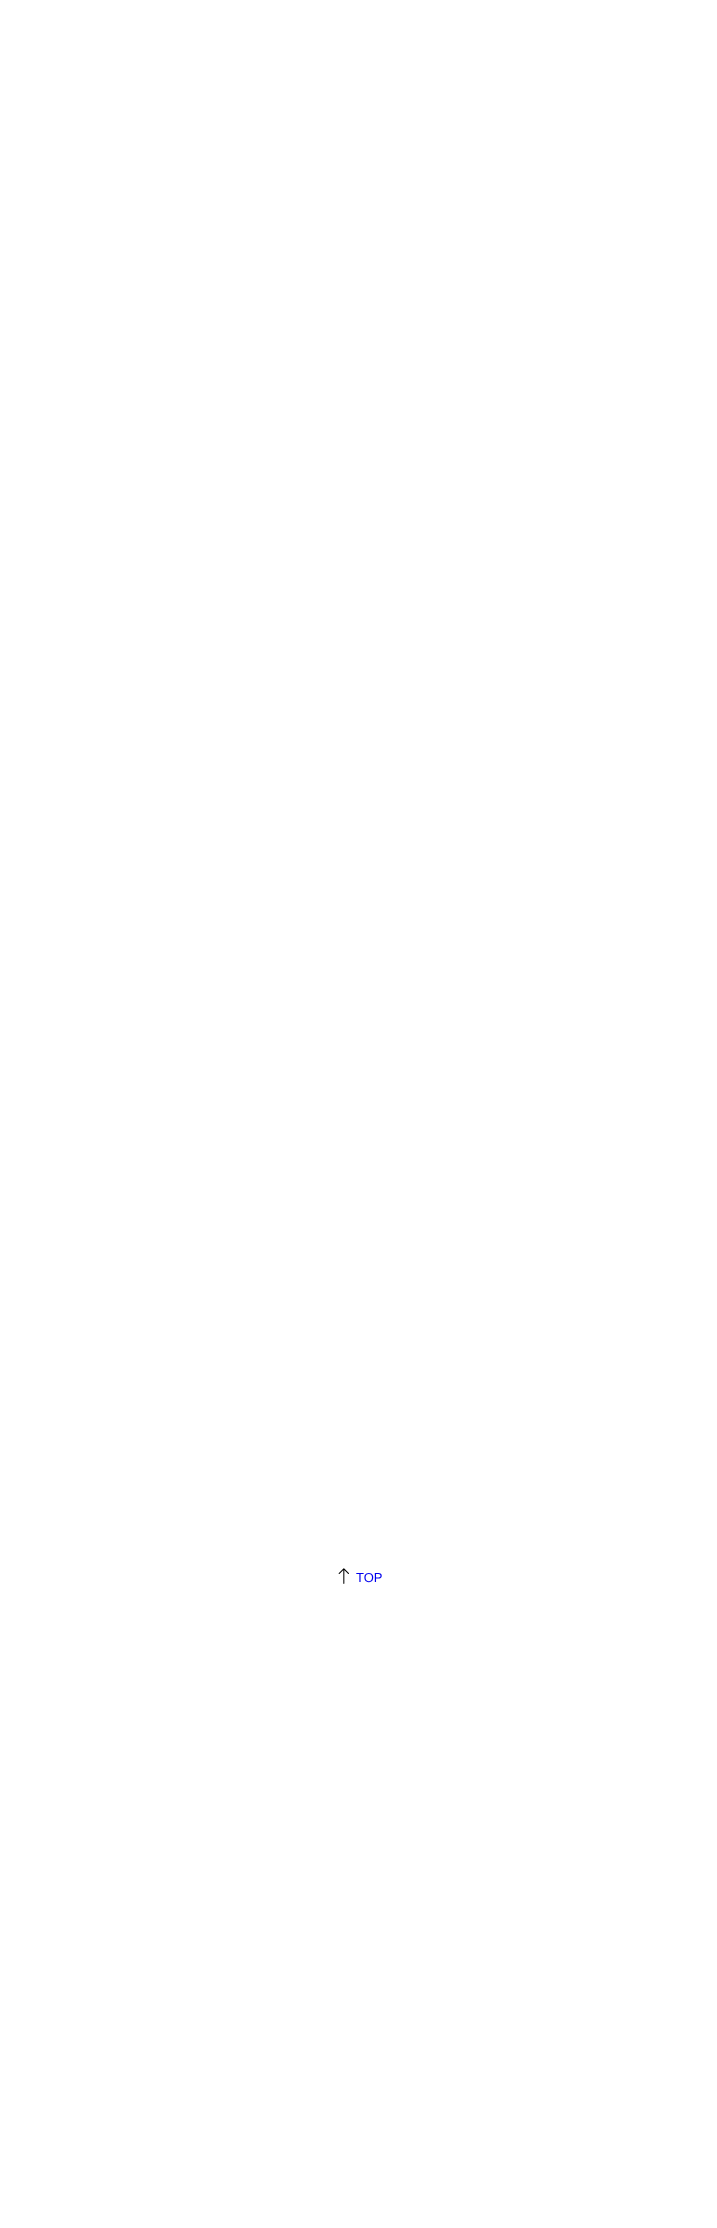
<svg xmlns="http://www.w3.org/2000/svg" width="717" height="2228">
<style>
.a{font:13px Arimo;fill:#00e}
</style>
<rect width="100%" height="100%" fill="#fff"/>
<image href="1.png" x="338" y="1568" width="11" height="16"/>
<text class="a" x="356" y="1582">TOP</text>
</svg>
